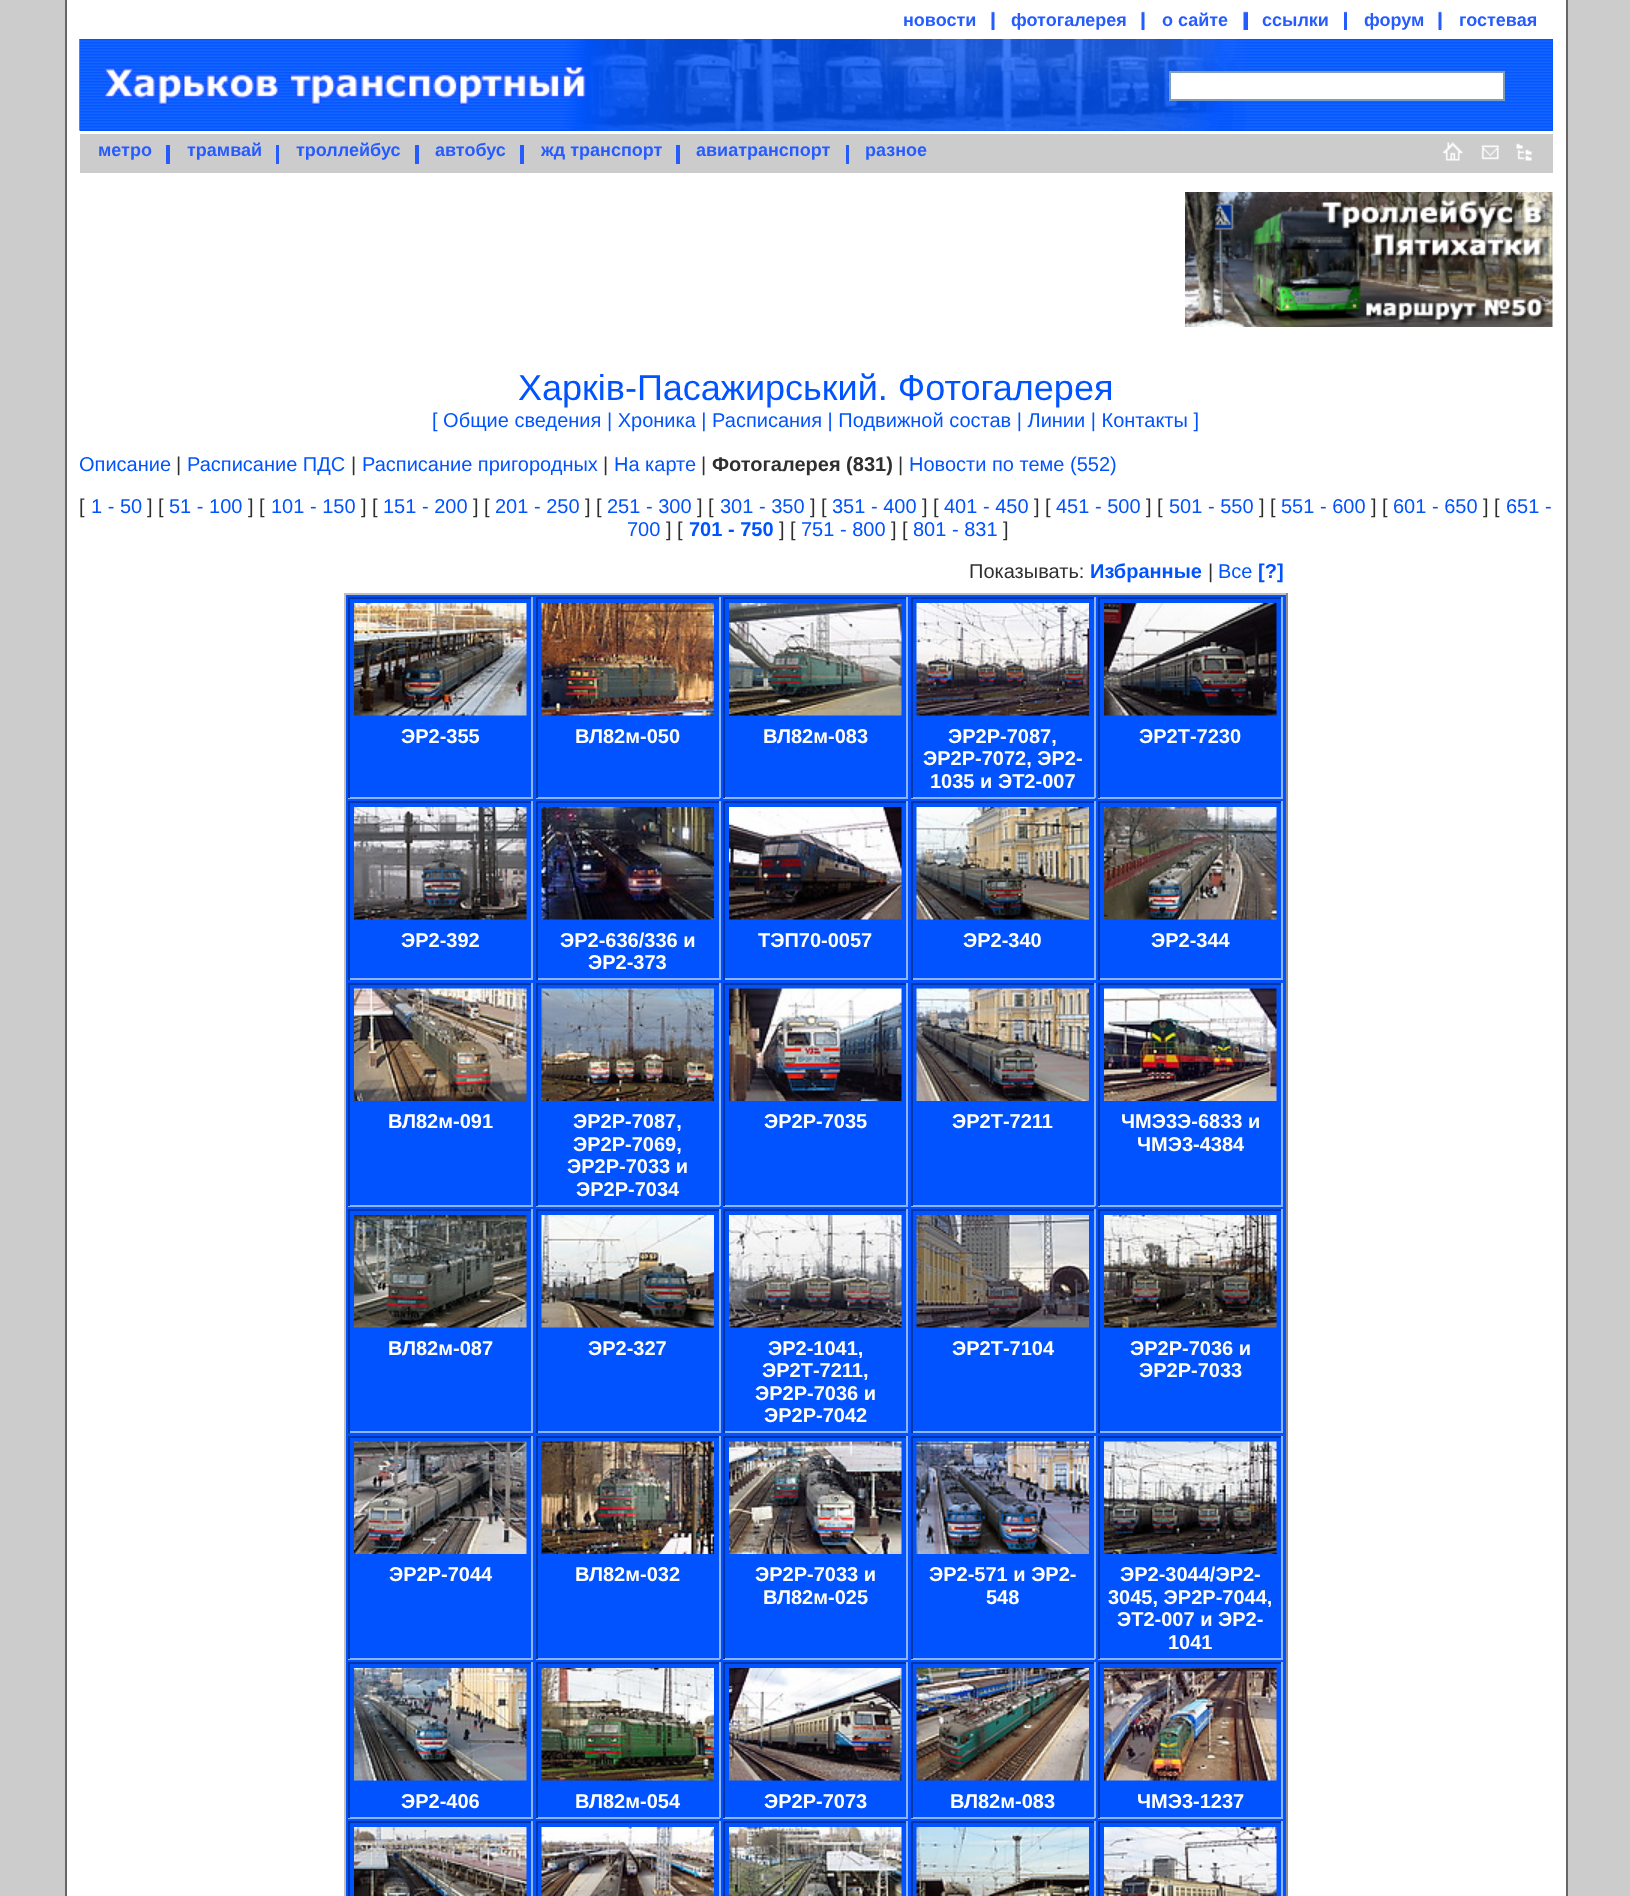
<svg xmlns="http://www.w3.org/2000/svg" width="1630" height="1896">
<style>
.a{font:bold 18px Liberation Sans;fill:#265cff}
.b{font:36px Liberation Sans;fill:#0053ff}
.c{font:20px Liberation Sans;fill:#0053ff}
.d{font:20px Liberation Sans;fill:#2f2f2f}
.e{font:bold 20px Liberation Sans;fill:#2f2f2f}
.f{font:bold 20px Liberation Sans;fill:#0053ff}
.g{font:bold 20px Liberation Sans;fill:#fff}
</style>
<rect width="100%" height="100%" fill="#ccc"/>
<path fill="#fff" d="M67 0h1499v1896H67z"/>
<path fill="#666" d="M1566 0h2v1896H1566z"/>
<path fill="#666" d="M65 0h2v1896H65z"/>
<image href="1.png" x="991" y="11" width="4" height="19"/>
<image href="1.png" x="1141" y="11" width="4" height="19"/>
<image href="2.png" x="1243" y="11" width="5" height="19"/>
<image href="3.png" x="1344" y="11" width="3" height="19"/>
<image href="1.png" x="1438" y="11" width="4" height="19"/>
<path fill="#05f" d="M80 39h1473v92H80z"/>
<image href="4.png" x="79" y="39" width="1474" height="92"/>
<image href="5.png" x="79" y="39" width="518" height="92"/>
<image href="6.png" x="597" y="39" width="648" height="92"/>
<path fill="#fff" stroke="#7f9db9" stroke-width="2" d="M1170 72h334v28H1170z"/>
<path fill="#ccc" d="M80 134h1473v39H80z"/>
<path fill="#265cff" d="M166 145h4v19H166z"/>
<path fill="#265cff" d="M276 145h3v19H276z"/>
<path fill="#265cff" d="M415 145h4v19H415z"/>
<path fill="#265cff" d="M520 145h4v19H520z"/>
<path fill="#265cff" d="M676 145h4v19H676z"/>
<path fill="#265cff" d="M846 145h3v19H846z"/>
<image href="7.png" x="1442" y="142" width="21" height="19"/>
<image href="8.png" x="1481" y="145" width="18" height="15"/>
<image href="9.png" x="1516" y="143" width="16" height="18"/>
<image href="10.png" x="1185" y="192" width="368" height="135"/>
<path fill="#0053ff" d="M346 595h940v1301H346z"/>
<path fill="#c0c0c0" d="M344 593h943v2H344z"/>
<path fill="#8d8d8d" d="M1286 593h2v1303H1286z"/>
<path fill="#c0c0c0" d="M344 593h2v1303H344z"/>
<path fill="#0036a6" d="M348 597h185v2H348z"/>
<path fill="#8eb3ff" d="M531 597h2v201H531z"/>
<path fill="#8eb3ff" d="M348 797h185v2H348z"/>
<path fill="#0036a6" d="M348 597h2v201H348z"/>
<image href="11.png" x="354" y="603" width="173" height="113"/>
<path fill="#0036a6" d="M536 597h184v2H536z"/>
<path fill="#8eb3ff" d="M719 597h2v201H719z"/>
<path fill="#8eb3ff" d="M536 797h184v2H536z"/>
<path fill="#0036a6" d="M536 597h2v201H536z"/>
<image href="12.png" x="541" y="603" width="173" height="113"/>
<path fill="#0036a6" d="M723 597h185v2H723z"/>
<path fill="#8eb3ff" d="M906 597h2v201H906z"/>
<path fill="#8eb3ff" d="M723 797h185v2H723z"/>
<path fill="#0036a6" d="M723 597h2v201H723z"/>
<image href="13.png" x="729" y="603" width="173" height="113"/>
<path fill="#0036a6" d="M911 597h184v2H911z"/>
<path fill="#8eb3ff" d="M1094 597h2v201H1094z"/>
<path fill="#8eb3ff" d="M911 797h184v2H911z"/>
<path fill="#0036a6" d="M911 597h2v201H911z"/>
<image href="14.png" x="916" y="603" width="173" height="113"/>
<path fill="#0036a6" d="M1098 597h185v2H1098z"/>
<path fill="#8eb3ff" d="M1281 597h2v201H1281z"/>
<path fill="#8eb3ff" d="M1098 797h185v2H1098z"/>
<path fill="#0036a6" d="M1098 597h2v201H1098z"/>
<image href="15.png" x="1104" y="603" width="173" height="113"/>
<path fill="#0036a6" d="M348 801h185v2H348z"/>
<path fill="#8eb3ff" d="M531 801h2v179H531z"/>
<path fill="#8eb3ff" d="M348 978h185v2H348z"/>
<path fill="#0036a6" d="M348 801h2v179H348z"/>
<image href="16.png" x="354" y="807" width="173" height="113"/>
<path fill="#0036a6" d="M536 801h184v2H536z"/>
<path fill="#8eb3ff" d="M719 801h2v179H719z"/>
<path fill="#8eb3ff" d="M536 978h184v2H536z"/>
<path fill="#0036a6" d="M536 801h2v179H536z"/>
<image href="17.png" x="541" y="807" width="173" height="113"/>
<path fill="#0036a6" d="M723 801h185v2H723z"/>
<path fill="#8eb3ff" d="M906 801h2v179H906z"/>
<path fill="#8eb3ff" d="M723 978h185v2H723z"/>
<path fill="#0036a6" d="M723 801h2v179H723z"/>
<image href="18.png" x="729" y="807" width="173" height="113"/>
<path fill="#0036a6" d="M911 801h184v2H911z"/>
<path fill="#8eb3ff" d="M1094 801h2v179H1094z"/>
<path fill="#8eb3ff" d="M911 978h184v2H911z"/>
<path fill="#0036a6" d="M911 801h2v179H911z"/>
<image href="19.png" x="916" y="807" width="173" height="113"/>
<path fill="#0036a6" d="M1098 801h185v2H1098z"/>
<path fill="#8eb3ff" d="M1281 801h2v179H1281z"/>
<path fill="#8eb3ff" d="M1098 978h185v2H1098z"/>
<path fill="#0036a6" d="M1098 801h2v179H1098z"/>
<image href="20.png" x="1104" y="807" width="173" height="113"/>
<path fill="#0036a6" d="M348 983h185v2H348z"/>
<path fill="#8eb3ff" d="M531 983h2v223H531z"/>
<path fill="#8eb3ff" d="M348 1205h185v2H348z"/>
<path fill="#0036a6" d="M348 983h2v223H348z"/>
<image href="21.png" x="354" y="988" width="173" height="113"/>
<path fill="#0036a6" d="M536 983h184v2H536z"/>
<path fill="#8eb3ff" d="M719 983h2v223H719z"/>
<path fill="#8eb3ff" d="M536 1205h184v2H536z"/>
<path fill="#0036a6" d="M536 983h2v223H536z"/>
<image href="22.png" x="541" y="988" width="173" height="113"/>
<path fill="#0036a6" d="M723 983h185v2H723z"/>
<path fill="#8eb3ff" d="M906 983h2v223H906z"/>
<path fill="#8eb3ff" d="M723 1205h185v2H723z"/>
<path fill="#0036a6" d="M723 983h2v223H723z"/>
<image href="23.png" x="729" y="988" width="173" height="113"/>
<path fill="#0036a6" d="M911 983h184v2H911z"/>
<path fill="#8eb3ff" d="M1094 983h2v223H1094z"/>
<path fill="#8eb3ff" d="M911 1205h184v2H911z"/>
<path fill="#0036a6" d="M911 983h2v223H911z"/>
<image href="24.png" x="916" y="988" width="173" height="113"/>
<path fill="#0036a6" d="M1098 983h185v2H1098z"/>
<path fill="#8eb3ff" d="M1281 983h2v223H1281z"/>
<path fill="#8eb3ff" d="M1098 1205h185v2H1098z"/>
<path fill="#0036a6" d="M1098 983h2v223H1098z"/>
<image href="25.png" x="1104" y="988" width="173" height="113"/>
<path fill="#0036a6" d="M348 1209h185v2H348z"/>
<path fill="#8eb3ff" d="M531 1209h2v224H531z"/>
<path fill="#8eb3ff" d="M348 1431h185v2H348z"/>
<path fill="#0036a6" d="M348 1209h2v224H348z"/>
<image href="26.png" x="354" y="1215" width="173" height="113"/>
<path fill="#0036a6" d="M536 1209h184v2H536z"/>
<path fill="#8eb3ff" d="M719 1209h2v224H719z"/>
<path fill="#8eb3ff" d="M536 1431h184v2H536z"/>
<path fill="#0036a6" d="M536 1209h2v224H536z"/>
<image href="27.png" x="541" y="1215" width="173" height="113"/>
<path fill="#0036a6" d="M723 1209h185v2H723z"/>
<path fill="#8eb3ff" d="M906 1209h2v224H906z"/>
<path fill="#8eb3ff" d="M723 1431h185v2H723z"/>
<path fill="#0036a6" d="M723 1209h2v224H723z"/>
<image href="28.png" x="729" y="1215" width="173" height="113"/>
<path fill="#0036a6" d="M911 1209h184v2H911z"/>
<path fill="#8eb3ff" d="M1094 1209h2v224H1094z"/>
<path fill="#8eb3ff" d="M911 1431h184v2H911z"/>
<path fill="#0036a6" d="M911 1209h2v224H911z"/>
<image href="29.png" x="916" y="1215" width="173" height="113"/>
<path fill="#0036a6" d="M1098 1209h185v2H1098z"/>
<path fill="#8eb3ff" d="M1281 1209h2v224H1281z"/>
<path fill="#8eb3ff" d="M1098 1431h185v2H1098z"/>
<path fill="#0036a6" d="M1098 1209h2v224H1098z"/>
<image href="30.png" x="1104" y="1215" width="173" height="113"/>
<path fill="#0036a6" d="M348 1436h185v2H348z"/>
<path fill="#8eb3ff" d="M531 1436h2v223H531z"/>
<path fill="#8eb3ff" d="M348 1658h185v2H348z"/>
<path fill="#0036a6" d="M348 1436h2v223H348z"/>
<image href="31.png" x="354" y="1441" width="173" height="113"/>
<path fill="#0036a6" d="M536 1436h184v2H536z"/>
<path fill="#8eb3ff" d="M719 1436h2v223H719z"/>
<path fill="#8eb3ff" d="M536 1658h184v2H536z"/>
<path fill="#0036a6" d="M536 1436h2v223H536z"/>
<image href="32.png" x="541" y="1441" width="173" height="113"/>
<path fill="#0036a6" d="M723 1436h185v2H723z"/>
<path fill="#8eb3ff" d="M906 1436h2v223H906z"/>
<path fill="#8eb3ff" d="M723 1658h185v2H723z"/>
<path fill="#0036a6" d="M723 1436h2v223H723z"/>
<image href="33.png" x="729" y="1441" width="173" height="113"/>
<path fill="#0036a6" d="M911 1436h184v2H911z"/>
<path fill="#8eb3ff" d="M1094 1436h2v223H1094z"/>
<path fill="#8eb3ff" d="M911 1658h184v2H911z"/>
<path fill="#0036a6" d="M911 1436h2v223H911z"/>
<image href="34.png" x="916" y="1441" width="173" height="113"/>
<path fill="#0036a6" d="M1098 1436h185v2H1098z"/>
<path fill="#8eb3ff" d="M1281 1436h2v223H1281z"/>
<path fill="#8eb3ff" d="M1098 1658h185v2H1098z"/>
<path fill="#0036a6" d="M1098 1436h2v223H1098z"/>
<image href="35.png" x="1104" y="1441" width="173" height="113"/>
<path fill="#0036a6" d="M348 1662h185v2H348z"/>
<path fill="#8eb3ff" d="M531 1662h2v156H531z"/>
<path fill="#8eb3ff" d="M348 1817h185v2H348z"/>
<path fill="#0036a6" d="M348 1662h2v156H348z"/>
<image href="36.png" x="354" y="1668" width="173" height="113"/>
<path fill="#0036a6" d="M536 1662h184v2H536z"/>
<path fill="#8eb3ff" d="M719 1662h2v156H719z"/>
<path fill="#8eb3ff" d="M536 1817h184v2H536z"/>
<path fill="#0036a6" d="M536 1662h2v156H536z"/>
<image href="37.png" x="541" y="1668" width="173" height="113"/>
<path fill="#0036a6" d="M723 1662h185v2H723z"/>
<path fill="#8eb3ff" d="M906 1662h2v156H906z"/>
<path fill="#8eb3ff" d="M723 1817h185v2H723z"/>
<path fill="#0036a6" d="M723 1662h2v156H723z"/>
<image href="38.png" x="729" y="1668" width="173" height="113"/>
<path fill="#0036a6" d="M911 1662h184v2H911z"/>
<path fill="#8eb3ff" d="M1094 1662h2v156H1094z"/>
<path fill="#8eb3ff" d="M911 1817h184v2H911z"/>
<path fill="#0036a6" d="M911 1662h2v156H911z"/>
<image href="39.png" x="916" y="1668" width="173" height="113"/>
<path fill="#0036a6" d="M1098 1662h185v2H1098z"/>
<path fill="#8eb3ff" d="M1281 1662h2v156H1281z"/>
<path fill="#8eb3ff" d="M1098 1817h185v2H1098z"/>
<path fill="#0036a6" d="M1098 1662h2v156H1098z"/>
<image href="40.png" x="1104" y="1668" width="173" height="113"/>
<path fill="#0036a6" d="M348 1821h185v2H348z"/>
<path fill="#8eb3ff" d="M531 1821h2v75H531z"/>
<path fill="#0036a6" d="M348 1821h2v75H348z"/>
<image href="41.png" x="354" y="1827" width="173" height="69"/>
<path fill="#0036a6" d="M536 1821h184v2H536z"/>
<path fill="#8eb3ff" d="M719 1821h2v75H719z"/>
<path fill="#0036a6" d="M536 1821h2v75H536z"/>
<image href="42.png" x="541" y="1827" width="173" height="69"/>
<path fill="#0036a6" d="M723 1821h185v2H723z"/>
<path fill="#8eb3ff" d="M906 1821h2v75H906z"/>
<path fill="#0036a6" d="M723 1821h2v75H723z"/>
<image href="43.png" x="729" y="1827" width="173" height="69"/>
<path fill="#0036a6" d="M911 1821h184v2H911z"/>
<path fill="#8eb3ff" d="M1094 1821h2v75H1094z"/>
<path fill="#0036a6" d="M911 1821h2v75H911z"/>
<image href="44.png" x="916" y="1827" width="173" height="69"/>
<path fill="#0036a6" d="M1098 1821h185v2H1098z"/>
<path fill="#8eb3ff" d="M1281 1821h2v75H1281z"/>
<path fill="#0036a6" d="M1098 1821h2v75H1098z"/>
<image href="45.png" x="1104" y="1827" width="173" height="69"/>
<text class="a" x="903" y="26">новости</text>
<text class="a" x="1011" y="26">фотогалерея</text>
<text class="a" x="1162" y="26">о сайте</text>
<text class="a" x="1262" y="26">ссылки</text>
<text class="a" x="1364" y="26">форум</text>
<text class="a" x="1459" y="26">гостевая</text>
<text class="a" x="98" y="156">метро</text>
<text class="a" x="187" y="156">трамвай</text>
<text class="a" x="296" y="156">троллейбус</text>
<text class="a" x="435" y="156">автобус</text>
<text class="a" x="541" y="156">жд транспорт</text>
<text class="a" x="696" y="156">авиатранспорт</text>
<text class="a" x="865" y="156">разное</text>
<text class="b" x="518" y="400">Харків-Пасажирський. Фотогалерея</text>
<text class="c" x="432" y="427">[ Общие сведения | Хроника | Расписания | Подвижной состав | Линии | Контакты ]</text>
<text class="c" x="79" y="471">Описание</text>
<text class="d" x="176" y="471">|</text>
<text class="c" x="187" y="471">Расписание ПДС</text>
<text class="d" x="351" y="471">|</text>
<text class="c" x="362" y="471">Расписание пригородных</text>
<text class="d" x="603" y="471">|</text>
<text class="c" x="614" y="471">На карте</text>
<text class="d" x="701" y="471">|</text>
<text class="e" x="712" y="471">Фотогалерея (831)</text>
<text class="d" x="898" y="471">|</text>
<text class="c" x="909" y="471">Новости по теме (552)</text>
<text class="d" x="79" y="513">[</text>
<text class="c" x="91" y="513">1 - 50</text>
<text class="d" x="147" y="513">] [</text>
<text class="c" x="169" y="513">51 - 100</text>
<text class="d" x="248" y="513">] [</text>
<text class="c" x="271" y="513">101 - 150</text>
<text class="d" x="361" y="513">] [</text>
<text class="c" x="383" y="513">151 - 200</text>
<text class="d" x="473" y="513">] [</text>
<text class="c" x="495" y="513">201 - 250</text>
<text class="d" x="585" y="513">] [</text>
<text class="c" x="607" y="513">251 - 300</text>
<text class="d" x="697" y="513">] [</text>
<text class="c" x="720" y="513">301 - 350</text>
<text class="d" x="810" y="513">] [</text>
<text class="c" x="832" y="513">351 - 400</text>
<text class="d" x="922" y="513">] [</text>
<text class="c" x="944" y="513">401 - 450</text>
<text class="d" x="1034" y="513">] [</text>
<text class="c" x="1056" y="513">451 - 500</text>
<text class="d" x="1146" y="513">] [</text>
<text class="c" x="1169" y="513">501 - 550</text>
<text class="d" x="1259" y="513">] [</text>
<text class="c" x="1281" y="513">551 - 600</text>
<text class="d" x="1371" y="513">] [</text>
<text class="c" x="1393" y="513">601 - 650</text>
<text class="d" x="1483" y="513">] [</text>
<text class="c" x="1506" y="513">651 -</text>
<text class="c" x="627" y="536">700</text>
<text class="d" x="666" y="536">] [</text>
<text class="f" x="689" y="536">701 - 750</text>
<text class="d" x="779" y="536">] [</text>
<text class="c" x="801" y="536">751 - 800</text>
<text class="d" x="891" y="536">] [</text>
<text class="c" x="913" y="536">801 - 831</text>
<text class="d" x="1003" y="536">]</text>
<text class="d" x="969" y="578">Показывать:</text>
<text class="f" x="1090" y="578">Избранные</text>
<text class="d" x="1208" y="578">|</text>
<text class="c" x="1218" y="578">Все</text>
<text class="f" x="1258" y="578">[?]</text>
<text class="g" x="401" y="743">ЭР2-355</text>
<text class="g" x="575" y="743">ВЛ82м-050</text>
<text class="g" x="763" y="743">ВЛ82м-083</text>
<text class="g" x="948" y="743">ЭР2Р-7087,</text>
<text class="g" x="923" y="765">ЭР2Р-7072, ЭР2-</text>
<text class="g" x="930" y="788">1035 и ЭТ2-007</text>
<text class="g" x="1139" y="743">ЭР2Т-7230</text>
<text class="g" x="401" y="947">ЭР2-392</text>
<text class="g" x="560" y="947">ЭР2-636/336 и</text>
<text class="g" x="588" y="969">ЭР2-373</text>
<text class="g" x="758" y="947">ТЭП70-0057</text>
<text class="g" x="963" y="947">ЭР2-340</text>
<text class="g" x="1151" y="947">ЭР2-344</text>
<text class="g" x="388" y="1128">ВЛ82м-091</text>
<text class="g" x="573" y="1128">ЭР2Р-7087,</text>
<text class="g" x="573" y="1151">ЭР2Р-7069,</text>
<text class="g" x="567" y="1173">ЭР2Р-7033 и</text>
<text class="g" x="576" y="1196">ЭР2Р-7034</text>
<text class="g" x="764" y="1128">ЭР2Р-7035</text>
<text class="g" x="952" y="1128">ЭР2Т-7211</text>
<text class="g" x="1121" y="1128">ЧМЭ3Э-6833 и</text>
<text class="g" x="1137" y="1151">ЧМЭ3-4384</text>
<text class="g" x="388" y="1355">ВЛ82м-087</text>
<text class="g" x="588" y="1355">ЭР2-327</text>
<text class="g" x="768" y="1355">ЭР2-1041,</text>
<text class="g" x="762" y="1377">ЭР2Т-7211,</text>
<text class="g" x="755" y="1400">ЭР2Р-7036 и</text>
<text class="g" x="764" y="1422">ЭР2Р-7042</text>
<text class="g" x="952" y="1355">ЭР2Т-7104</text>
<text class="g" x="1130" y="1355">ЭР2Р-7036 и</text>
<text class="g" x="1139" y="1377">ЭР2Р-7033</text>
<text class="g" x="389" y="1581">ЭР2Р-7044</text>
<text class="g" x="575" y="1581">ВЛ82м-032</text>
<text class="g" x="755" y="1581">ЭР2Р-7033 и</text>
<text class="g" x="763" y="1604">ВЛ82м-025</text>
<text class="g" x="929" y="1581">ЭР2-571 и ЭР2-</text>
<text class="g" x="986" y="1604">548</text>
<text class="g" x="1120" y="1581">ЭР2-3044/ЭР2-</text>
<text class="g" x="1108" y="1604">3045, ЭР2Р-7044,</text>
<text class="g" x="1117" y="1626">ЭТ2-007 и ЭР2-</text>
<text class="g" x="1168" y="1649">1041</text>
<text class="g" x="401" y="1808">ЭР2-406</text>
<text class="g" x="575" y="1808">ВЛ82м-054</text>
<text class="g" x="764" y="1808">ЭР2Р-7073</text>
<text class="g" x="950" y="1808">ВЛ82м-083</text>
<text class="g" x="1137" y="1808">ЧМЭ3-1237</text>
</svg>
